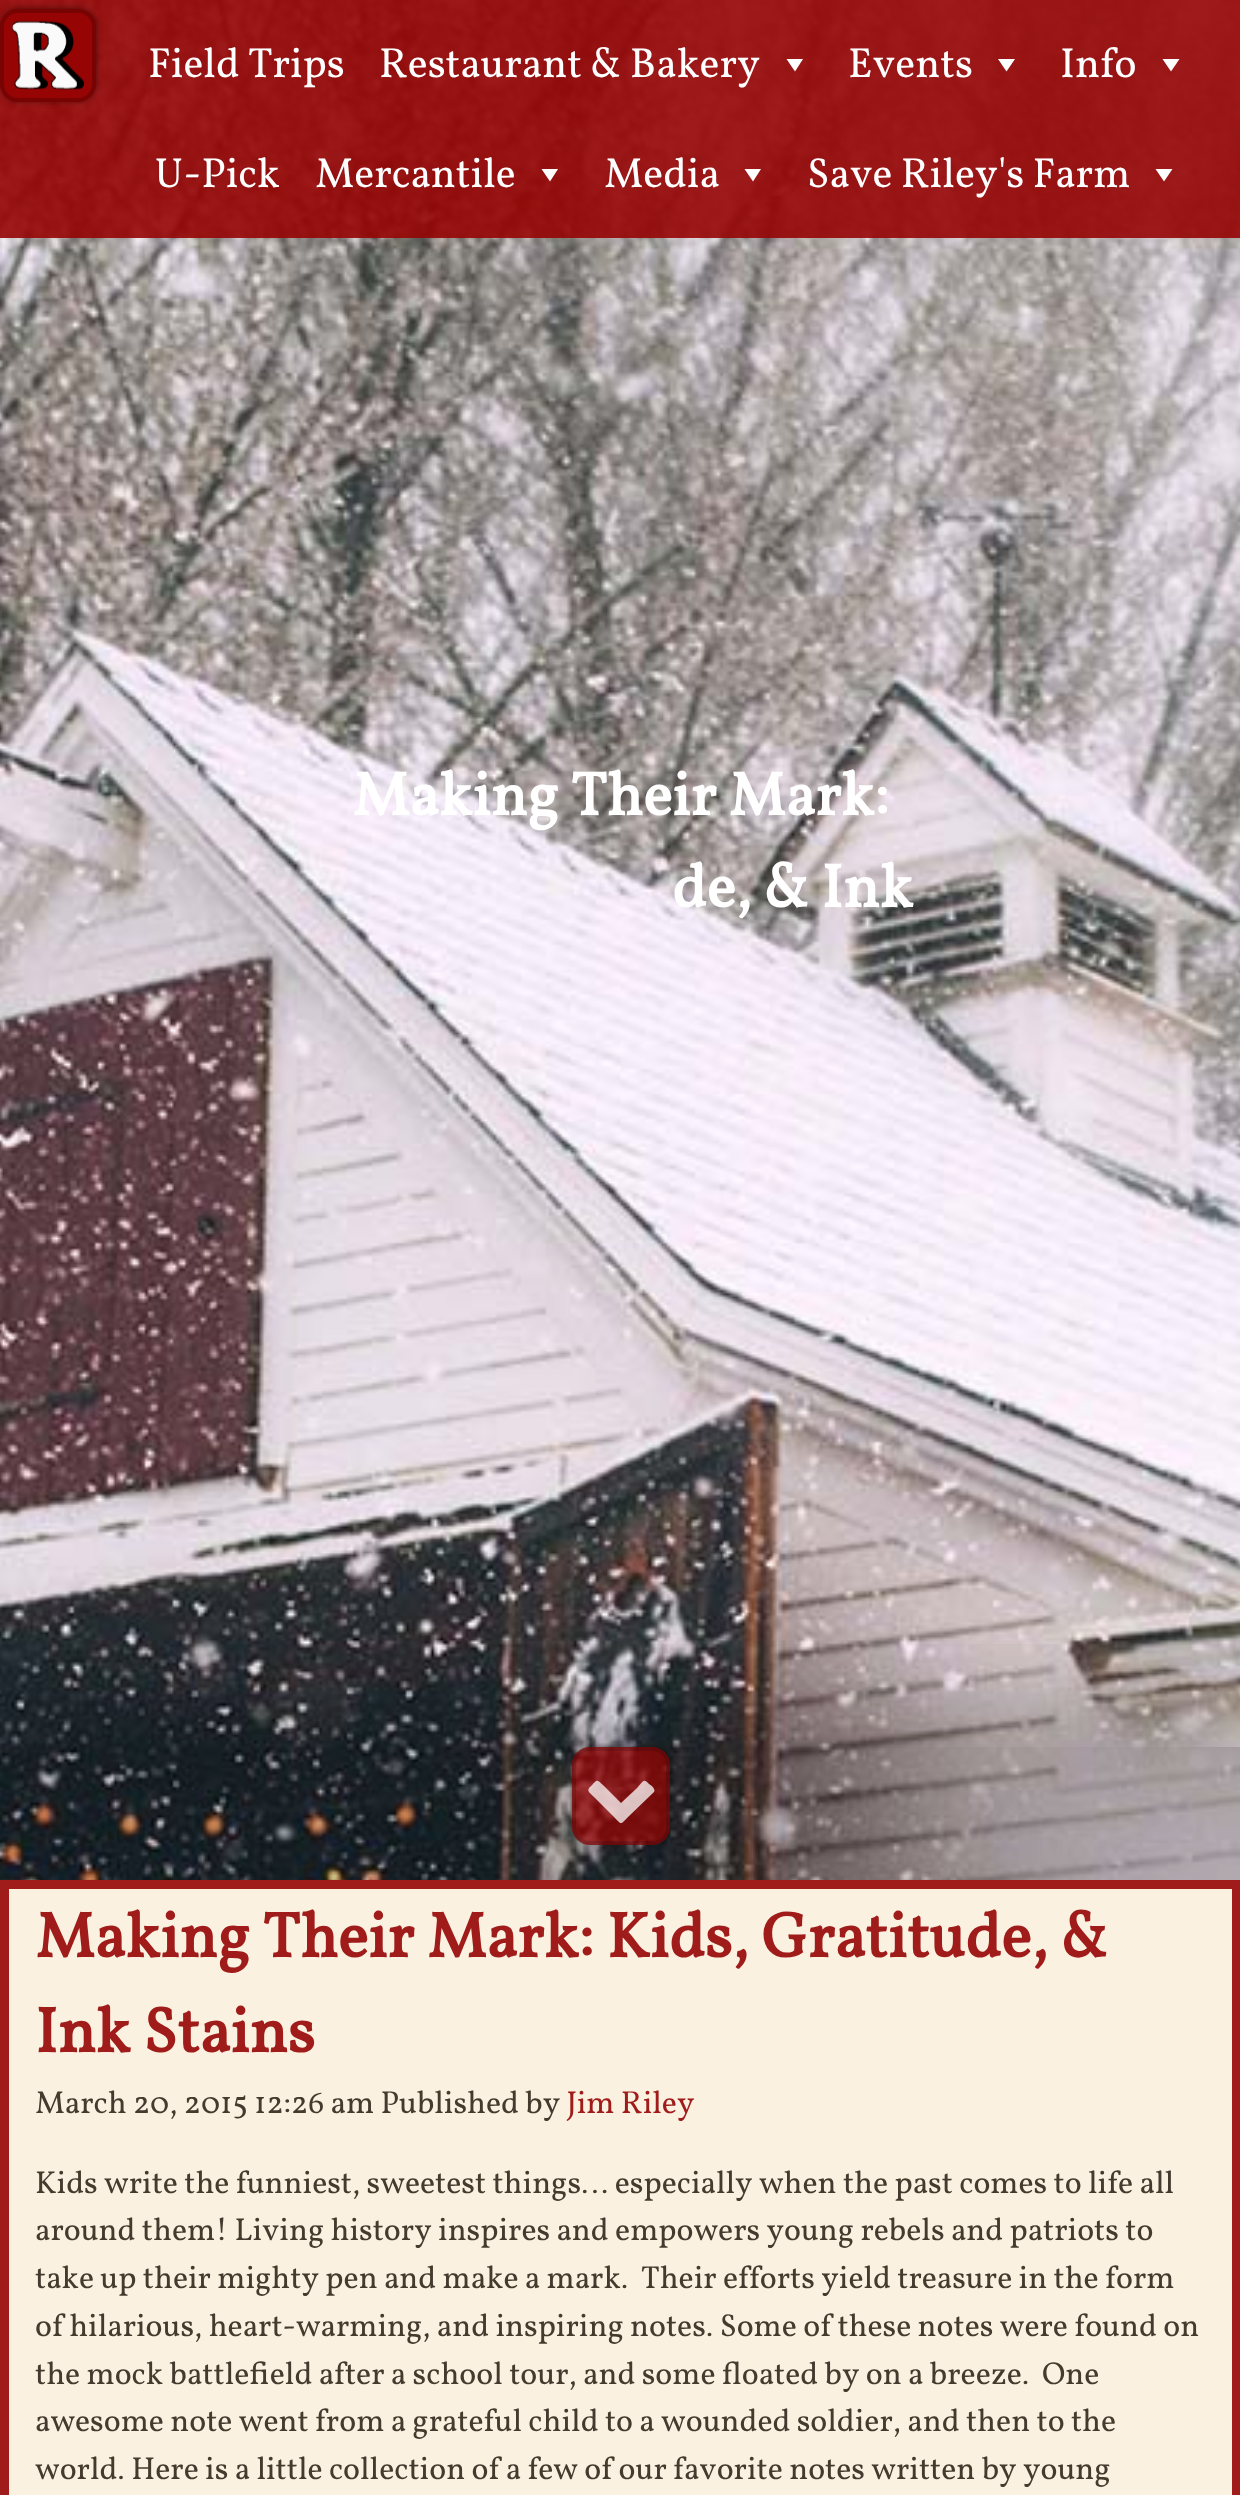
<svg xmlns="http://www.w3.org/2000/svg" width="1240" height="2495">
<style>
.a{font:42px Vollkorn;fill:#fff}
.b{font:bold 61.25px Vollkorn;fill:#fff}
.c{font:bold 63.75px Vollkorn;fill:#a01c1a}
.d{font:31.85px Vollkorn;fill:#443b2e}
.e{font:31.85px Vollkorn;fill:#a01c1a}
</style>
<defs>
<clipPath id="clip1"><path d="M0 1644h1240v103H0z"/></clipPath>
<clipPath id="clip2"><path d="M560 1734h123v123h-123zm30 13h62c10 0 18 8 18 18v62c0 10-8 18-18 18h-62c-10 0-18-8-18-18v-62c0-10 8-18 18-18z" clip-rule="evenodd"/></clipPath>
</defs>
<rect width="100%" height="100%" fill="#fff"/>
<image href="2.png" x="0" y="0" width="1240" height="1880"/>
<rect fill="#000" filter="blur(5px)" x="12" y="12" width="67" height="67" rx="14"/>
<path fill="#960404e6" d="M0 0h1240v238H0z"/>
<rect fill="#000" filter="blur(5px)" x="4" y="12" width="89" height="86" rx="14"/>
<rect fill="#960404" y="9" width="96" height="93" rx="18"/>
<rect fill="none" stroke="#00000033" stroke-width="4" x="2" y="11" width="92" height="89" rx="16"/>
<image href="1.png" x="12" y="20" width="72" height="70"/>
<path fill="#fff" d="M803 59l-8 12.5l-8.5-12.5z"/>
<path fill="#fff" d="M1015 59l-8.5 12.5l-8.5-12.5z"/>
<path fill="#fff" d="M1179.5 59l-8.5 12.5l-8.5-12.5z"/>
<path fill="#fff" d="M558 169l-8 12.5l-8.5-12.5z"/>
<path fill="#fff" d="M761 169l-8 12.5l-8.5-12.5z"/>
<path fill="#fff" d="M1172.5 169l-8.5 12.5l-8.5-12.5z"/>
<g clip-path="url(#clip1)">
<path fill="#00000038" filter="blur(41px)" d="M0 1699h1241v133H0z"/>
</g>
<path fill="#00000038" d="M0 1747h1240v133H0z"/>
<g clip-path="url(#clip2)">
<rect fill="#000000bf" filter="blur(5px)" x="576" y="1750" width="91" height="91" rx="14"/>
</g>
<rect fill="#960404bf" x="572" y="1747" width="98" height="98" rx="18"/>
<rect fill="none" stroke="#00000026" stroke-width="4" x="574" y="1749" width="94" height="94" rx="16"/>
<path fill="#ffffffbf" d="M654 1792l-26 25c-8 8-6 8-14 0l-20-20c-4-4-8-6-4-10c7-7 6-9 13-2l18 18l15-14c7-7 7-12 13-5c2 1 7 5 5 8z"/>
<path fill="#fbf1e1" stroke="#a01c1a" stroke-width="9" d="M4.5 1884.5h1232v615H4.5z"/>
<text class="a" x="148" y="77">Field Trips</text>
<text class="a" x="379" y="77">Restaurant &amp; Bakery</text>
<text class="a" x="848" y="77">Events</text>
<text class="a" x="1060" y="77">Info</text>
<text class="a" x="154" y="187">U-Pick</text>
<text class="a" x="315" y="187">Mercantile</text>
<text class="a" x="604" y="187">Media</text>
<text class="a" x="807" y="187">Save Riley's Farm</text>
<text class="b" x="352" y="815">Making Their Mark:</text>
<text class="b" x="672" y="907">de, &amp; Ink</text>
<text class="c" x="35" y="1957">Making Their Mark: Kids, Gratitude, &amp;</text>
<text class="c" x="35" y="2052">Ink Stains</text>
<text class="d" x="35" y="2113">March 20, 2015 12:26 am Published by</text>
<text class="e" x="566" y="2113">Jim Riley</text>
<text class="d" x="35" y="2193">Kids write the funniest, sweetest things… especially when the past comes to life all</text>
<text class="d" x="35" y="2240">around them! Living history inspires and empowers young rebels and patriots to</text>
<text class="d" xml:space="preserve" x="35" y="2288">take up their mighty pen and make a mark.  Their efforts yield treasure in the form</text>
<text class="d" x="35" y="2336">of hilarious, heart-warming, and inspiring notes. Some of these notes were found on</text>
<text class="d" xml:space="preserve" x="35" y="2384">the mock battlefield after a school tour, and some floated by on a breeze.  One</text>
<text class="d" x="35" y="2431">awesome note went from a grateful child to a wounded soldier, and then to the</text>
<text class="d" x="35" y="2479">world. Here is a little collection of a few of our favorite notes written by young</text>
</svg>
